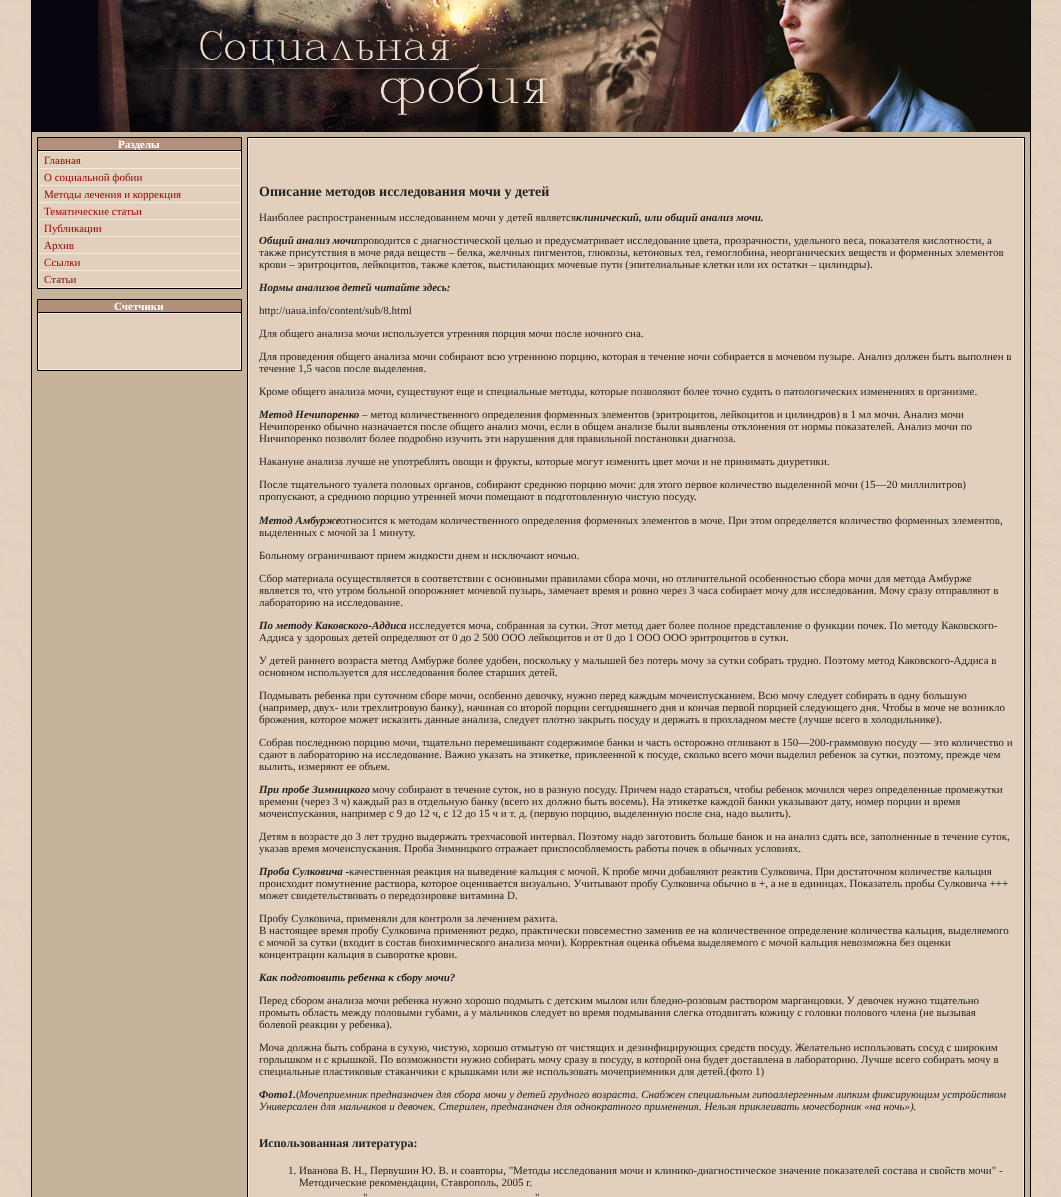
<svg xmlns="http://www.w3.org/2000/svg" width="1061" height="1197">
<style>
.a{font:bold 11px Liberation Serif;fill:#fff}
.b{font:11px Liberation Serif;fill:#900}
.c{font:bold 14px Liberation Serif;fill:#222}
.d{font:11px Liberation Serif;fill:#222}
.e{font:italic bold 11px Liberation Serif;fill:#222}
.f{font:italic 11px Liberation Serif;fill:#222}
.g{font:bold 12px Liberation Serif;fill:#222}
</style>
<rect width="100%" height="100%" fill="#fff"/>
<image href="1.png" x="0" y="0" width="1061" height="1197"/>
<path fill="none" stroke="#000" d="M31.5 -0.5h999v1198H31.5z"/>
<image href="2.png" x="32" y="0" width="998" height="132"/>
<path fill="#c7b39b" d="M32 132h998v1065H32z"/>
<path fill="#e2d0bc" d="M39 152h201v135H39z"/>
<path fill="none" stroke="#000" d="M37.5 137.5h204v151H37.5z"/>
<path fill="#b3907c" d="M38 138h203v12H38z"/>
<path fill="#000" d="M38 150h203v1H38z"/>
<path fill="none" stroke="#f3eae2" d="M38.5 151.5h202v136H38.5z"/>
<path fill="#f3eae2" d="M39 168h201v1H39z"/>
<path fill="#f3eae2" d="M39 185h201v1H39z"/>
<path fill="#f3eae2" d="M39 202h201v1H39z"/>
<path fill="#f3eae2" d="M39 219h201v1H39z"/>
<path fill="#f3eae2" d="M39 236h201v1H39z"/>
<path fill="#f3eae2" d="M39 253h201v1H39z"/>
<path fill="#f3eae2" d="M39 270h201v1H39z"/>
<path fill="#e2d0bc" d="M39 314h201v55H39z"/>
<path fill="none" stroke="#000" d="M37.5 299.5h204v71H37.5z"/>
<path fill="#b3907c" d="M38 300h203v12H38z"/>
<path fill="#000" d="M38 312h203v1H38z"/>
<path fill="none" stroke="#f3eae2" d="M38.5 313.5h202v56H38.5z"/>
<path fill="#e2d0bc" d="M249 139h774v1058H249z"/>
<path fill="none" stroke="#000" d="M247.5 137.5h777v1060H247.5z"/>
<path fill="none" stroke="#f3eae2" d="M248.5 138.5h775v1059H248.5z"/>
<text class="a" x="118" y="148">Разделы</text>
<text class="b" x="44" y="164">Главная</text>
<text class="b" x="44" y="181">О социальной фобии</text>
<text class="b" x="44" y="198">Методы лечения и коррекция</text>
<text class="b" x="44" y="215">Тематические статьи</text>
<text class="b" x="44" y="232">Публикации</text>
<text class="b" x="44" y="249">Архив</text>
<text class="b" x="44" y="266">Ссылки</text>
<text class="b" x="44" y="283">Статьи</text>
<text class="a" x="114" y="310">Счетчики</text>
<text class="c" x="259" y="196">Описание методов исследования мочи у детей</text>
<text class="d" x="259" y="221">Наиболее распространенным исследованием мочи у детей является</text>
<text class="e" x="576" y="221">клинический, или общий анализ мочи.</text>
<text class="e" x="259" y="244">Общий анализ мочи</text>
<text class="d" x="357" y="244">проводится с диагностической целью и предусматривает исследование цвета, прозрачности, удельного веса, показателя кислотности, а</text>
<text class="d" x="259" y="256">также присутствия в моче ряда веществ – белка, желчных пигментов, глюкозы, кетоновых тел, гемоглобина, неорганических веществ и форменных элементов</text>
<text class="d" x="259" y="268">крови – эритроцитов, лейкоцитов, также клеток, выстилающих мочевые пути (эпителиальные клетки или их остатки – цилиндры).</text>
<text class="e" x="259" y="291">Нормы анализов детей читайте здесь:</text>
<text class="d" x="259" y="314">http://uaua.info/content/sub/8.html</text>
<text class="d" x="259" y="337">Для общего анализа мочи используется утренняя порция мочи после ночного сна.</text>
<text class="d" x="259" y="360">Для проведения общего анализа мочи собирают всю утреннюю порцию, которая в течение ночи собирается в мочевом пузыре. Анализ должен быть выполнен в</text>
<text class="d" x="259" y="372">течение 1,5 часов после выделения.</text>
<text class="d" x="259" y="395">Кроме общего анализа мочи, существуют еще и специальные методы, которые позволяют более точно судить о патологических изменениях в организме.</text>
<text class="e" x="259" y="418">Метод Нечипоренко</text>
<text class="d" x="362" y="418">– метод количественного определения форменных элементов (эритроцитов, лейкоцитов и цилиндров) в 1 мл мочи. Анализ мочи</text>
<text class="d" x="259" y="430">Нечипоренко обычно назначается после общего анализ мочи, если в общем анализе были выявлены отклонения от нормы показателей. Анализ мочи по</text>
<text class="d" x="259" y="442">Ничипоренко позволят более подробно изучить эти нарушения для правильной постановки диагноза.</text>
<text class="d" x="259" y="465">Накануне анализа лучше не употреблять овощи и фрукты, которые могут изменить цвет мочи и не принимать диуретики.</text>
<text class="d" x="259" y="488">После тщательного туалета половых органов, собирают среднюю порцию мочи: для этого первое количество выделенной мочи (15—20 миллилитров)</text>
<text class="d" x="259" y="500">пропускают, а среднюю порцию утренней мочи помещают в подготовленную чистую посуду.</text>
<text class="e" x="259" y="524">Метод Амбурже</text>
<text class="d" x="340" y="524">относится к методам количественного определения форменных элементов в моче. При этом определяется количество форменных элементов,</text>
<text class="d" x="259" y="536">выделенных с мочой за 1 минуту.</text>
<text class="d" x="259" y="559">Больному ограничивают прием жидкости днем и исключают ночью.</text>
<text class="d" x="259" y="582">Сбор материала осуществляется в соответствии с основными правилами сбора мочи, но отличительной особенностью сбора мочи для метода Амбурже</text>
<text class="d" x="259" y="594">является то, что утром больной опорожняет мочевой пузырь, замечает время и ровно через 3 часа собирает мочу для исследования. Мочу сразу отправляют в</text>
<text class="d" x="259" y="606">лабораторию на исследование.</text>
<text class="e" x="259" y="629">По методу Каковского-Аддиса</text>
<text class="d" x="409" y="629">исследуется моча, собранная за сутки. Этот метод дает более полное представление о функции почек. По методу Каковского-</text>
<text class="d" x="259" y="641">Аддиса у здоровых детей определяют от 0 до 2 500 ООО лейкоцитов и от 0 до 1 ООО ООО эритроцитов в сутки.</text>
<text class="d" x="259" y="664">У детей раннего возраста метод Амбурже более удобен, поскольку у малышей без потерь мочу за сутки собрать трудно. Поэтому метод Каковского-Аддиса в</text>
<text class="d" x="259" y="676">основном используется для исследования более старших детей.</text>
<text class="d" x="259" y="699">Подмывать ребенка при суточном сборе мочи, особенно девочку, нужно перед каждым мочеиспусканием. Всю мочу следует собирать в одну большую</text>
<text class="d" x="259" y="711">(например, двух- или трехлитровую банку), начиная со второй порции сегодняшнего дня и кончая первой порцией следующего дня. Чтобы в моче не возникло</text>
<text class="d" x="259" y="723">брожения, которое может исказить данные анализа, следует плотно закрыть посуду и держать в прохладном месте (лучше всего в холодильнике).</text>
<text class="d" x="259" y="746">Собрав последнюю порцию мочи, тщательно перемешивают содержимое банки и часть осторожно отливают в 150—200-граммовую посуду — это количество и</text>
<text class="d" x="259" y="758">сдают в лабораторию на исследование. Важно указать на этикетке, приклеенной к посуде, сколько всего мочи выделил ребенок за сутки, поэтому, прежде чем</text>
<text class="d" x="259" y="770">вылить, измеряют ее объем.</text>
<text class="e" x="259" y="793">При пробе Зимницкого</text>
<text class="d" x="372" y="793">мочу собирают в течение суток, но в разную посуду. Причем надо стараться, чтобы ребенок мочился через определенные промежутки</text>
<text class="d" x="259" y="805">времени (через 3 ч) каждый раз в отдельную банку (всего их должно быть восемь). На этикетке каждой банки указывают дату, номер порции и время</text>
<text class="d" x="259" y="817">мочеиспускания, например с 9 до 12 ч, с 12 до 15 ч и т. д. (первую порцию, выделенную после сна, надо вылить).</text>
<text class="d" x="259" y="840">Детям в возрасте до 3 лет трудно выдержать трехчасовой интервал. Поэтому надо заготовить больше банок и на анализ сдать все, заполненные в течение суток,</text>
<text class="d" x="259" y="852">указав время мочеиспускания. Проба Зимницкого отражает приспособляемость работы почек в обычных условиях.</text>
<text class="e" x="259" y="875">Проба Сулковича -</text>
<text class="d" x="349" y="875">качественная реакция на выведение кальция с мочой. К пробе мочи добавляют реактив Сулковича. При достаточном количестве кальция</text>
<text class="d" x="259" y="887">происходит помутнение раствора, которое оценивается визуально. Учитывают пробу Сулковича обычно в +, а не в единицах. Показатель пробы Сулковича +++</text>
<text class="d" x="259" y="899">может свидетельствовать о передозировке витамина D.</text>
<text class="d" x="259" y="922">Пробу Сулковича, применяли для контроля за лечением рахита.</text>
<text class="d" x="259" y="934">В настоящее время пробу Сулковича применяют редко, практически повсеместно заменив ее на количественное определение количества кальция, выделяемого</text>
<text class="d" x="259" y="946">с мочой за сутки (входит в состав биохимического анализа мочи). Корректная оценка объема выделяемого с мочой кальция невозможна без оценки</text>
<text class="d" x="259" y="958">концентрации кальция в сыворотке крови.</text>
<text class="e" x="259" y="981">Как подготовить ребенка к сбору мочи?</text>
<text class="d" x="259" y="1004">Перед сбором анализа мочи ребенка нужно хорошо подмыть с детским мылом или бледно-розовым раствором марганцовки. У девочек нужно тщательно</text>
<text class="d" x="259" y="1016">промыть область между половыми губами, а у мальчиков следует во время подмывания слегка отодвигать кожицу с головки полового члена (не вызывая</text>
<text class="d" x="259" y="1028">болевой реакции у ребенка).</text>
<text class="d" x="259" y="1051">Моча должна быть собрана в сухую, чистую, хорошо отмытую от чистящих и дезинфицирующих средств посуду. Желательно использовать сосуд c широким</text>
<text class="d" x="259" y="1063">горлышком и с крышкой. По возможности нужно собирать мочу сразу в посуду, в которой она будет доставлена в лабораторию. Лучше всего собирать мочу в</text>
<text class="d" x="259" y="1075">специальные пластиковые стаканчики с крышками или же использовать мочеприемники для детей.(фото 1)</text>
<text class="e" x="259" y="1098">Фото1.</text>
<text class="d" x="296" y="1098">(</text>
<text class="f" x="299" y="1098">Мочеприемник предназначен для сбора мочи у детей грудного возраста. Снабжен специальным гипоаллергенным липким фиксирующим устройством</text>
<text class="f" x="259" y="1110">Универсален для мальчиков и девочек. Стерилен, предназначен для однократного применения. Нельзя приклеивать мочесборник «на ночь»).</text>
<text class="g" x="259" y="1147">Использованная литература:</text>
<text class="d" x="288" y="1174">1. Иванова В. Н., Первушин Ю. В. и соавторы, "Методы исследования мочи и клинико-диагностическое значение показателей состава и свойств мочи" -</text>
<text class="d" x="299" y="1186">Методические рекомендации, Ставрополь, 2005 г.</text>
<text class="d" x="363" y="1201">"</text>
<text class="d" x="535" y="1201">"</text>
</svg>
